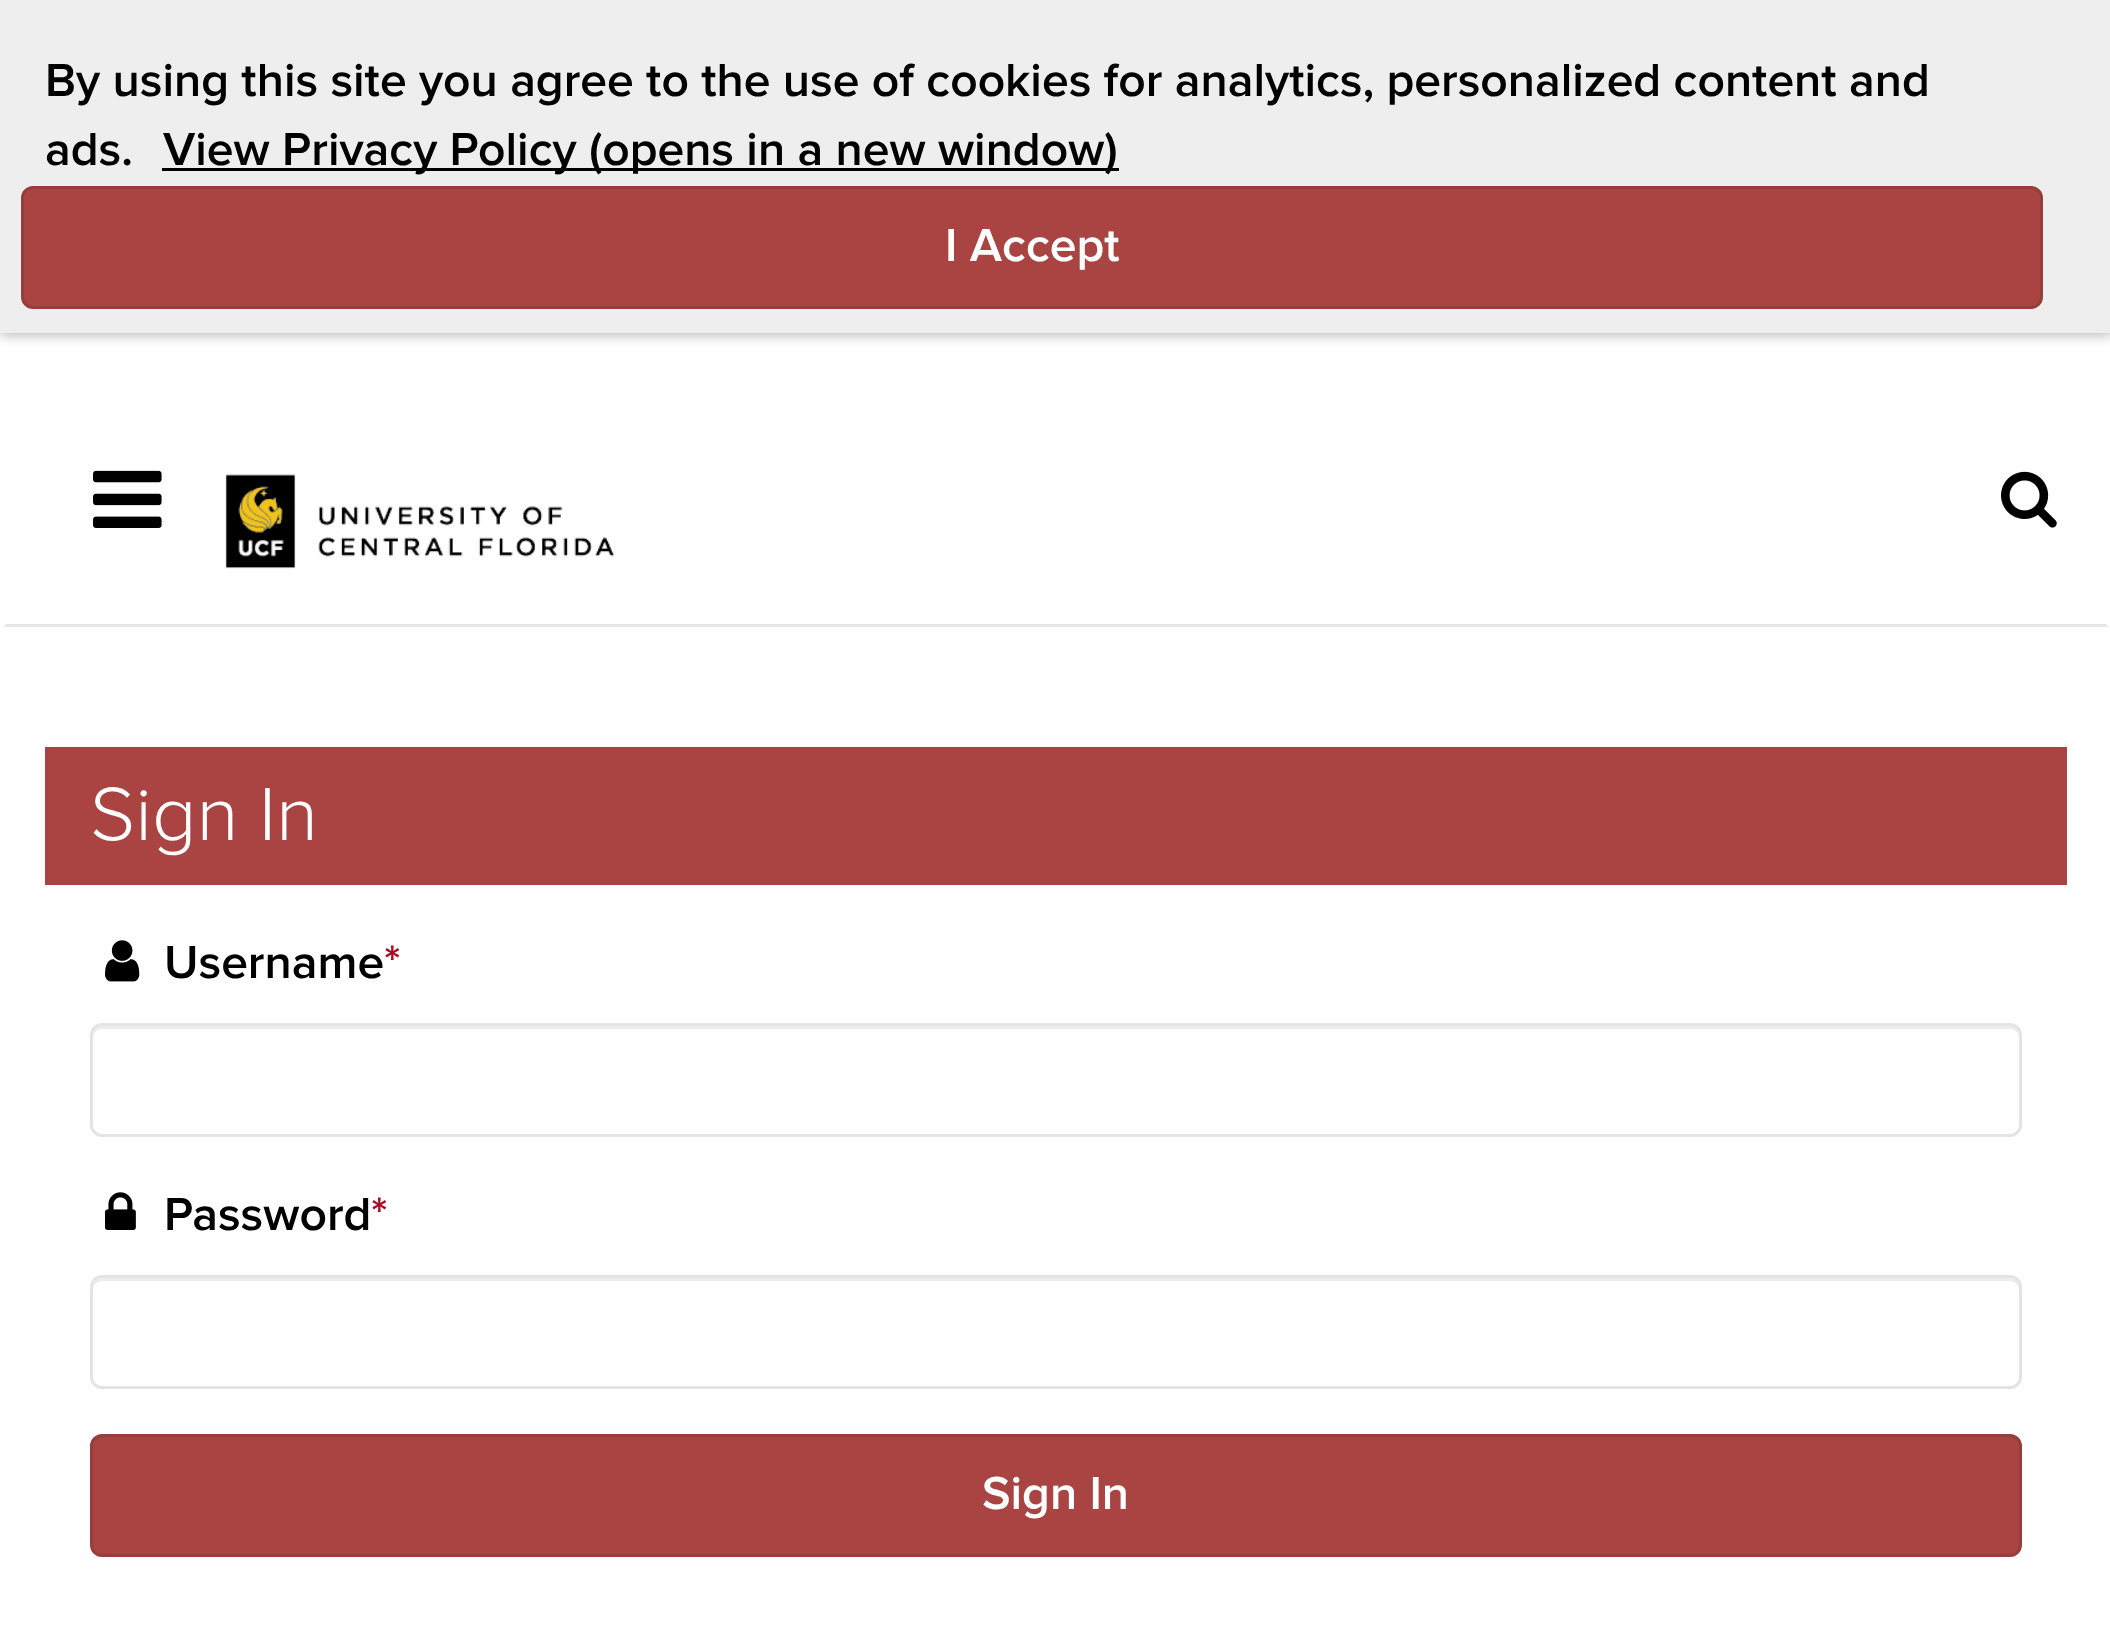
<svg xmlns="http://www.w3.org/2000/svg" width="2110" height="1628">
<style>
.a{font:600 48px Proxima Nova;fill:#000}
.b{font:600 48px Proxima Nova;fill:#fff}
.c{font:300 78px Proxima Nova;fill:#fff}
.d{font:600 48px Proxima Nova;fill:#ac0a24}
</style>
<rect width="100%" height="100%" fill="#fff"/>
<path fill="#00000040" filter="blur(6px)" d="M0 3h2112v333H0z"/>
<path fill="#eee" d="M0 0h2110v333H0z"/>
<path fill="#000" d="M162 168h957v3H162z"/>
<rect fill="#a94442" stroke="#973d3b" stroke-width="3" x="22.5" y="187.5" width="2019" height="120" rx="10.5"/>
<path fill="#e6e6e6" d="M2109 627h-2106l3-3h2100z"/>
<image href="1.png" x="93" y="470" width="69" height="58"/>
<image href="2.png" x="225" y="474" width="390" height="95"/>
<image href="3.png" x="2001" y="471" width="56" height="57"/>
<path fill="#a94442" d="M45 747h2022v138H45z"/>
<image href="4.png" x="105" y="940" width="35" height="42"/>
<path fill="#ececec" d="M102 1029h1908c5 0 9 4 9 9v-3c0-5-4-9-9-9h-1908c-5 0-9 4-9 9v3c0-5 4-9 9-9z"/>
<rect fill="none" stroke="#e4e4e4" stroke-width="3" x="91.5" y="1024.5" width="1929" height="111" rx="10.5"/>
<image href="5.png" x="105" y="1192" width="31" height="38"/>
<path fill="#ececec" d="M102 1281h1908c5 0 9 4 9 9v-3c0-5-4-9-9-9h-1908c-5 0-9 4-9 9v3c0-5 4-9 9-9z"/>
<rect fill="none" stroke="#e4e4e4" stroke-width="3" x="91.5" y="1276.5" width="1929" height="111" rx="10.5"/>
<rect fill="#a94442" stroke="#973d3b" stroke-width="3" x="91.5" y="1435.5" width="1929" height="120" rx="10.5"/>
<text class="a" x="45" y="96">By using this site you agree to the use of cookies for analytics, personalized content and</text>
<text class="a" x="45" y="165">ads.</text>
<text class="a" x="163" y="165">View Privacy Policy (opens in a new window)</text>
<text class="b" x="945" y="261">I Accept</text>
<text class="c" x="90" y="840">Sign In</text>
<text class="a" x="164" y="978">Username</text>
<text class="d" x="384" y="978">*</text>
<text class="a" x="164" y="1230">Password</text>
<text class="d" x="371" y="1230">*</text>
<text class="b" x="982" y="1509">Sign In</text>
</svg>
